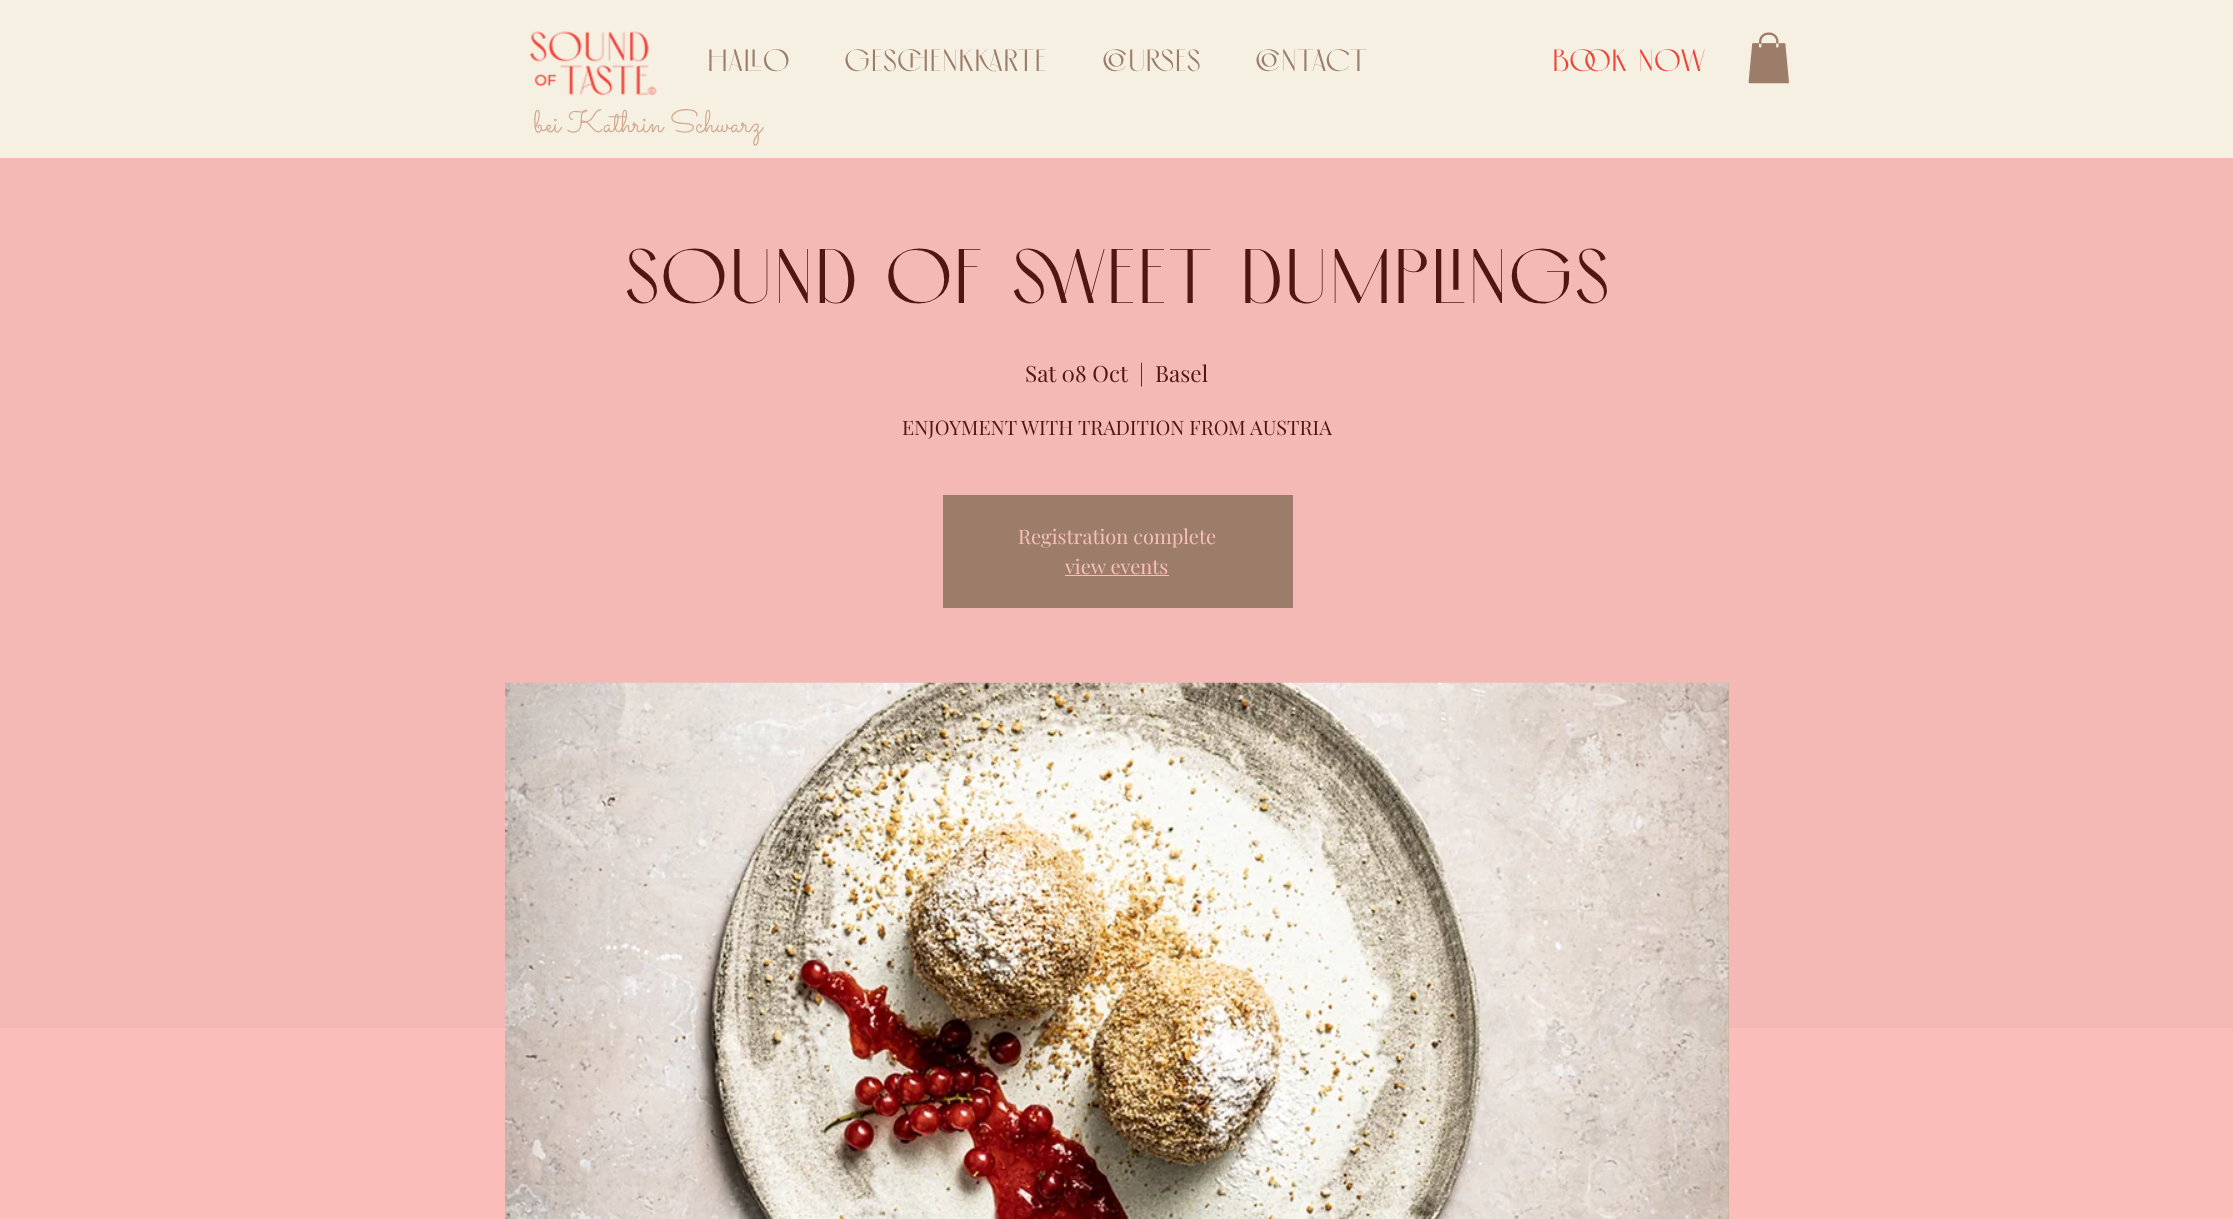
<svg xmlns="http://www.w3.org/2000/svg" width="2233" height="1219">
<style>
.a{font:30px 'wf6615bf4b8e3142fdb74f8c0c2';fill:#9b7d6a}
.b{font:30px 'wf6615bf4b8e3142fdb74f8c0c2';fill:#ef4539}
.c{font:31.25px Sacramento;fill:#cfa78d}
.d{font:75px 'wf6615bf4b8e3142fdb74f8c0c2';fill:#501612}
.e{font:22.5px Playfair Display;fill:#501612}
.f{font:20px Playfair Display;fill:#501612}
.g{font:20px Playfair Display;fill:#fabdba}
</style>
<rect width="100%" height="100%" fill="#f6f0e3"/>
<image href="1.png" x="529" y="31" width="128" height="65"/>
<image href="2.png" x="1748" y="32" width="41" height="52"/>
<path fill="#f4b9b5" d="M0 158h2233v870H0z"/>
<path fill="#9b7d6a" d="M943 495h350v113H943z"/>
<path fill="#fabdba" d="M1065 575h104v1H1065z"/>
<path fill="#fabdba" d="M0 1028h2233v191H0z"/>
<path fill="#cfa78d" d="M1728 683h1v536H1728z"/>
<image href="3.png" x="505" y="682" width="1224" height="537"/>
<text class="a" x="707" y="71">Hallo</text>
<text class="a" x="844" y="71">Geschenkkarte</text>
<text class="a" x="1102" y="71">courses</text>
<text class="a" x="1255" y="71">Contact</text>
<text class="b" x="1552" y="71">Book now</text>
<text class="c" x="534" y="132">bei Kathrin Schwarz</text>
<text class="d" x="623" y="303">Sound of sweet dumplings</text>
<text class="e" x="1025" y="382">Sat 08 Oct</text>
<text class="e" x="1139" y="382">|</text>
<text class="e" x="1155" y="382">Basel</text>
<text class="f" x="902" y="435">ENJOYMENT WITH TRADITION FROM AUSTRIA</text>
<text class="g" x="1018" y="544">Registration complete</text>
<text class="g" x="1065" y="574">view events</text>
</svg>
